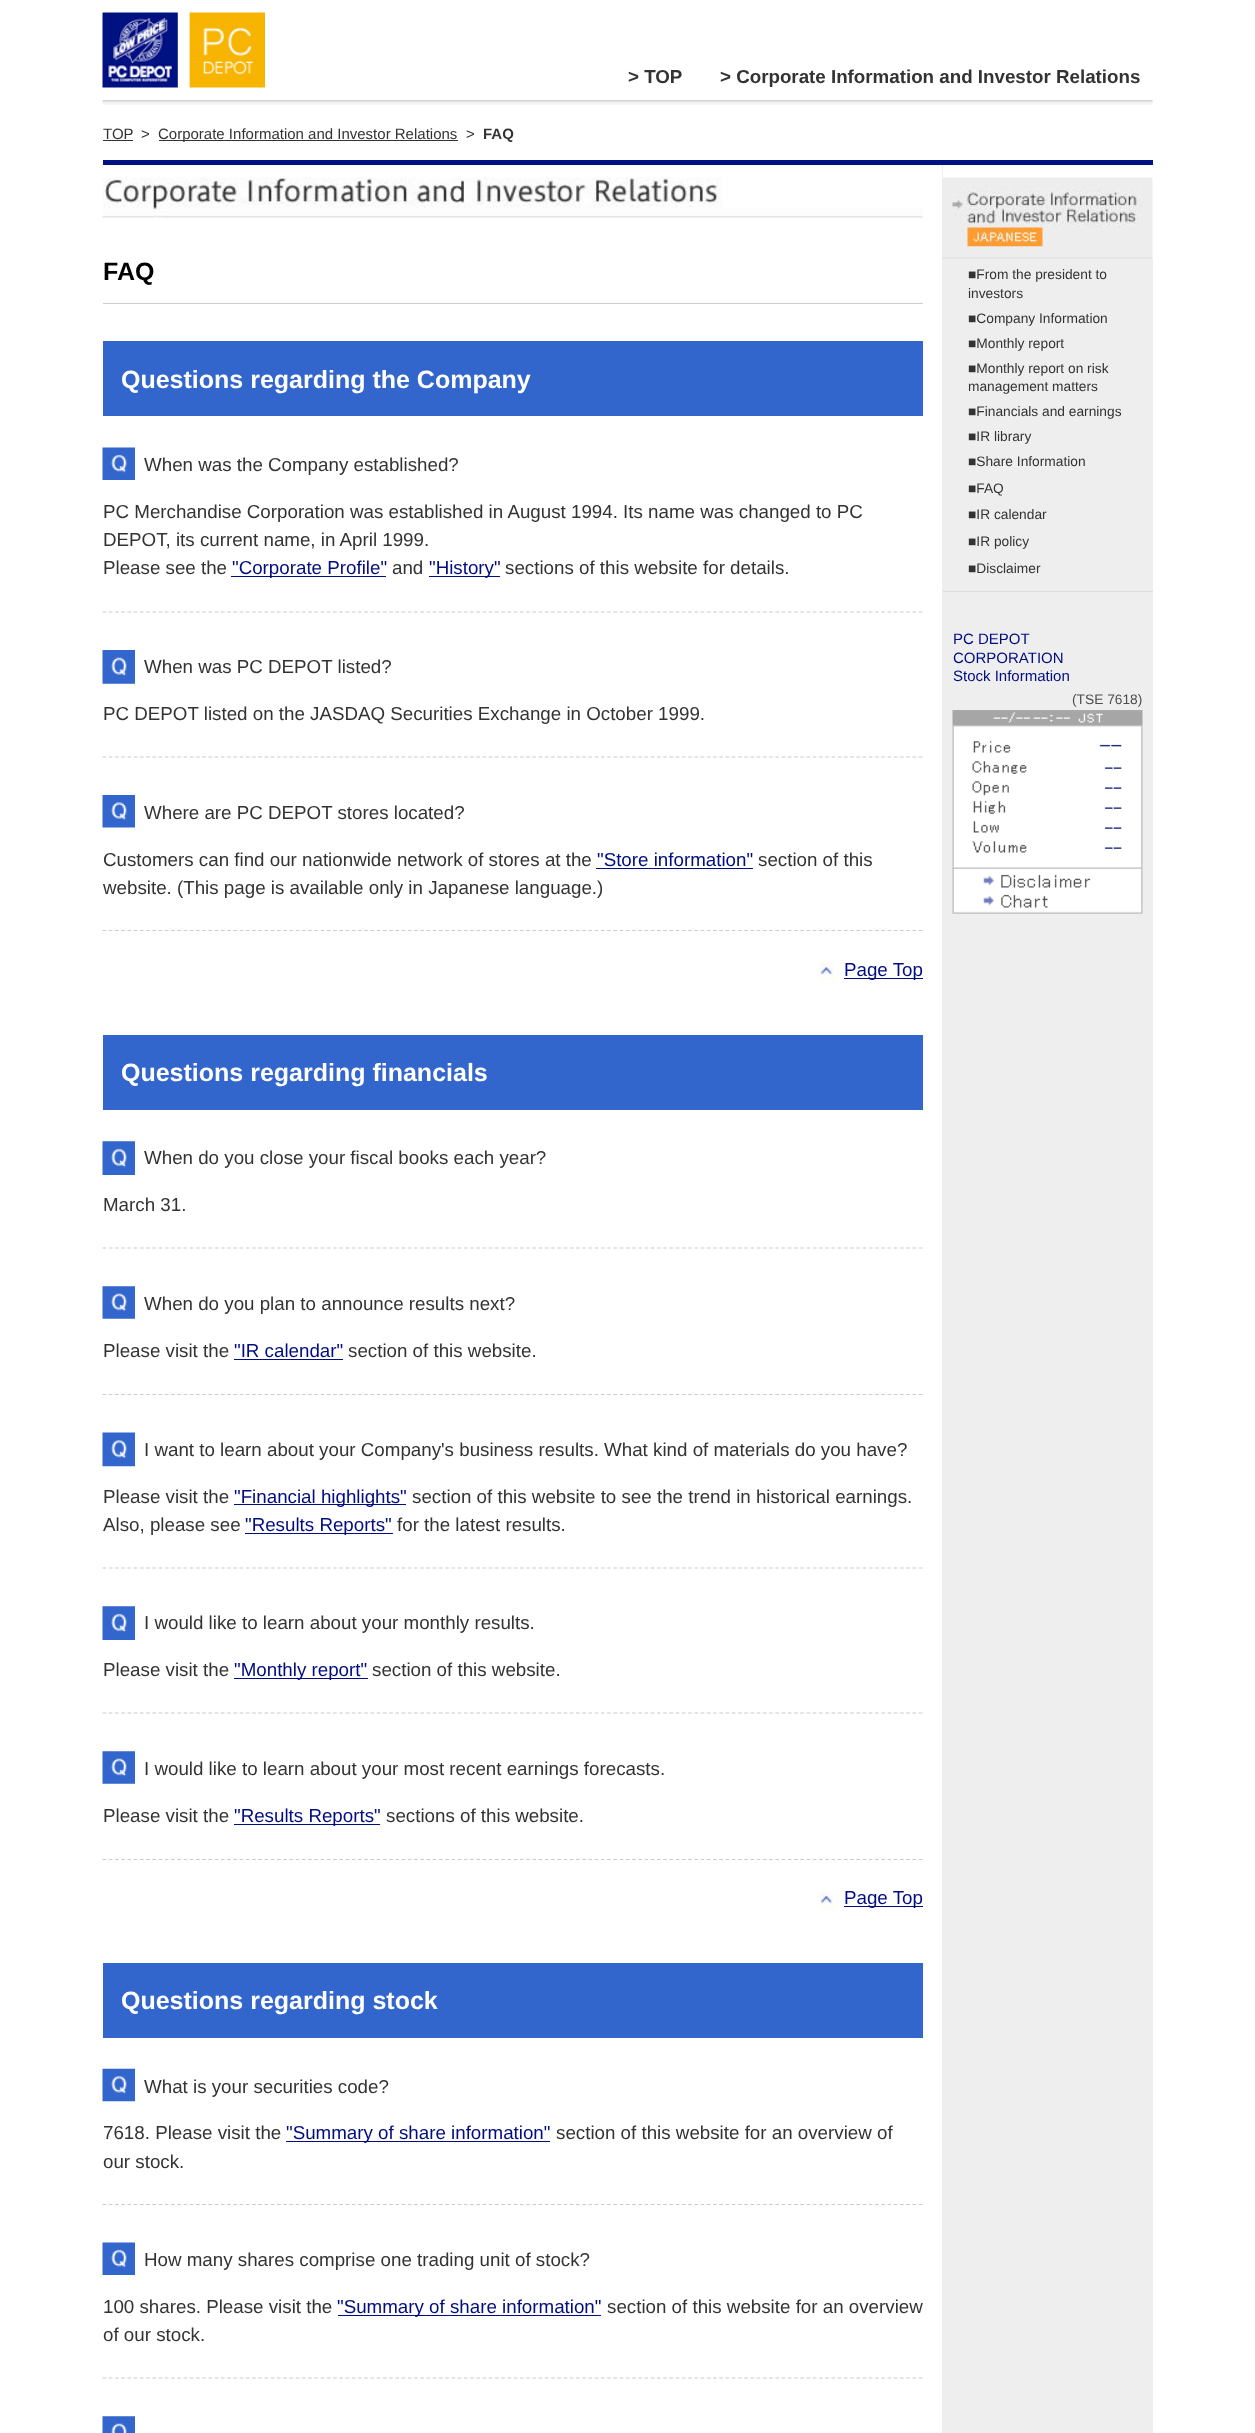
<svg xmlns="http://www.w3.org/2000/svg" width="1255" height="2433">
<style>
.a{font:bold 18.75px Liberation Sans;fill:#333}
.b{font:15px Liberation Sans;fill:#333}
.c{font:bold 15px Liberation Sans;fill:#333}
.d{font:bold 25px Liberation Sans;fill:#000}
.e{font:bold 25px Liberation Sans;fill:#fff}
.f{font:18.75px Liberation Sans;fill:#333}
.g{font:18.75px Liberation Sans;fill:#010c80}
.h{font:13.75px Liberation Sans;fill:#333}
.i{font:15px Liberation Sans;fill:#010c80}
.j{font:13.75px Liberation Sans;fill:#4d4d4d}
</style>
<rect width="100%" height="100%" fill="#fff"/>
<image href="1.png" x="102" y="100" width="1051" height="5"/>
<image href="2.png" x="102" y="12" width="163" height="76"/>
<path fill="#333" d="M103 140h30v1H103z"/>
<path fill="#333" d="M159 140h299v1H159z"/>
<path fill="#eee" d="M942 165h211v2268H942z"/>
<path fill="#001282" d="M103 160h1050v5H103z"/>
<image href="3.png" x="102" y="177" width="821" height="41"/>
<path fill="#ccc" d="M103 303h820v1H103z"/>
<path fill="#3266cc" d="M103 341h820v75H103z"/>
<image href="4.png" x="102" y="447" width="33" height="33"/>
<path fill="none" stroke="#ccc" stroke-width="1.2" stroke-dasharray="3.75 2.48" d="M102.5 612h820"/>
<path fill="#010c80" d="M231 576h155v1H231z"/>
<path fill="#010c80" d="M429 576h71v1H429z"/>
<image href="5.png" x="102" y="650" width="33" height="34"/>
<path fill="none" stroke="#ccc" stroke-width="1.2" stroke-dasharray="3.75 2.48" d="M102.5 757h820"/>
<image href="6.png" x="102" y="795" width="33" height="33"/>
<path fill="none" stroke="#ccc" stroke-width="1.2" stroke-dasharray="3.75 2.48" d="M102.5 930.5h820"/>
<path fill="#010c80" d="M596 868h157v1H596z"/>
<image href="7.png" x="818" y="962" width="16" height="18"/>
<path fill="#010c80" d="M844 978h79v1H844z"/>
<path fill="#3266cc" d="M103 1035h820v75H103z"/>
<image href="8.png" x="102" y="1141" width="33" height="34"/>
<path fill="none" stroke="#ccc" stroke-width="1.2" stroke-dasharray="3.75 2.48" d="M102.5 1248h820"/>
<image href="9.png" x="102" y="1286" width="33" height="33"/>
<path fill="none" stroke="#ccc" stroke-width="1.2" stroke-dasharray="3.75 2.48" d="M102.5 1394.5h820"/>
<path fill="#010c80" d="M234 1359h109v1H234z"/>
<image href="10.png" x="102" y="1432" width="33" height="35"/>
<path fill="none" stroke="#ccc" stroke-width="1.2" stroke-dasharray="3.75 2.48" d="M102.5 1568h820"/>
<path fill="#010c80" d="M234 1504h172v1H234z"/>
<path fill="#010c80" d="M245 1533h148v1H245z"/>
<image href="8.png" x="102" y="1606" width="33" height="34"/>
<path fill="none" stroke="#ccc" stroke-width="1.2" stroke-dasharray="3.75 2.48" d="M102.5 1713h820"/>
<path fill="#010c80" d="M234 1678h134v1H234z"/>
<image href="9.png" x="102" y="1751" width="33" height="33"/>
<path fill="none" stroke="#ccc" stroke-width="1.2" stroke-dasharray="3.75 2.48" d="M102.5 1859.5h820"/>
<path fill="#010c80" d="M234 1824h146v1H234z"/>
<image href="11.png" x="818" y="1891" width="16" height="18"/>
<path fill="#010c80" d="M844 1906h79v1H844z"/>
<path fill="#3266cc" d="M103 1963h820v75H103z"/>
<image href="12.png" x="102" y="2068" width="33" height="34"/>
<path fill="none" stroke="#ccc" stroke-width="1.2" stroke-dasharray="3.75 2.48" d="M102.5 2204.5h820"/>
<path fill="#010c80" d="M286 2141h264v1H286z"/>
<image href="4.png" x="102" y="2242" width="33" height="33"/>
<path fill="none" stroke="#ccc" stroke-width="1.2" stroke-dasharray="3.75 2.48" d="M102.5 2378h820"/>
<path fill="#010c80" d="M338 2315h263v1H338z"/>
<image href="13.png" x="102" y="2416" width="33" height="17"/>
<path fill="#fff" d="M943 165h210v94H943z"/>
<image href="14.png" x="942" y="177" width="211" height="82"/>
<image href="15.png" x="967" y="227" width="76" height="20"/>
<path fill="#ddd" d="M943 591h210v1H943z"/>
<image href="16.png" x="952" y="710" width="191" height="204"/>
<text class="a" x="628" y="83">&gt; TOP</text>
<text class="a" x="720" y="83">&gt; Corporate Information and Investor Relations</text>
<text class="b" x="103" y="139">TOP</text>
<text class="b" x="141" y="139">&gt;</text>
<text class="b" x="158" y="139">Corporate Information and Investor Relations</text>
<text class="b" x="466" y="139">&gt;</text>
<text class="c" x="483" y="139">FAQ</text>
<text class="d" x="103" y="280">FAQ</text>
<text class="e" x="121" y="388">Questions regarding the Company</text>
<text class="f" x="144" y="471">When was the Company established?</text>
<text class="f" x="103" y="518">PC Merchandise Corporation was established in August 1994. Its name was changed to PC</text>
<text class="f" x="103" y="546">DEPOT, its current name, in April 1999.</text>
<text class="f" x="103" y="574">Please see the</text>
<text class="g" x="232" y="574">"Corporate Profile"</text>
<text class="f" x="392" y="574">and</text>
<text class="g" x="429" y="574">"History"</text>
<text class="f" x="505" y="574">sections of this website for details.</text>
<text class="f" x="144" y="673">When was PC DEPOT listed?</text>
<text class="f" x="103" y="720">PC DEPOT listed on the JASDAQ Securities Exchange in October 1999.</text>
<text class="f" x="144" y="819">Where are PC DEPOT stores located?</text>
<text class="f" x="103" y="866">Customers can find our nationwide network of stores at the</text>
<text class="g" x="597" y="866">"Store information"</text>
<text class="f" x="758" y="866">section of this</text>
<text class="f" x="103" y="894">website. (This page is available only in Japanese language.)</text>
<text class="g" x="844" y="976">Page Top</text>
<text class="e" x="121" y="1081">Questions regarding financials</text>
<text class="f" x="144" y="1164">When do you close your fiscal books each year?</text>
<text class="f" x="103" y="1211">March 31.</text>
<text class="f" x="144" y="1310">When do you plan to announce results next?</text>
<text class="f" x="103" y="1357">Please visit the</text>
<text class="g" x="234" y="1357">"IR calendar"</text>
<text class="f" x="348" y="1357">section of this website.</text>
<text class="f" x="144" y="1456">I want to learn about your Company's business results. What kind of materials do you have?</text>
<text class="f" x="103" y="1503">Please visit the</text>
<text class="g" x="234" y="1503">"Financial highlights"</text>
<text class="f" x="412" y="1503">section of this website to see the trend in historical earnings.</text>
<text class="f" x="103" y="1531">Also, please see</text>
<text class="g" x="245" y="1531">"Results Reports"</text>
<text class="f" x="397" y="1531">for the latest results.</text>
<text class="f" x="144" y="1629">I would like to learn about your monthly results.</text>
<text class="f" x="103" y="1676">Please visit the</text>
<text class="g" x="234" y="1676">"Monthly report"</text>
<text class="f" x="372" y="1676">section of this website.</text>
<text class="f" x="144" y="1775">I would like to learn about your most recent earnings forecasts.</text>
<text class="f" x="103" y="1822">Please visit the</text>
<text class="g" x="234" y="1822">"Results Reports"</text>
<text class="f" x="386" y="1822">sections of this website.</text>
<text class="g" x="844" y="1904">Page Top</text>
<text class="e" x="121" y="2009">Questions regarding stock</text>
<text class="f" x="144" y="2093">What is your securities code?</text>
<text class="f" x="103" y="2139">7618. Please visit the</text>
<text class="g" x="286" y="2139">"Summary of share information"</text>
<text class="f" x="556" y="2139">section of this website for an overview of</text>
<text class="f" x="103" y="2168">our stock.</text>
<text class="f" x="144" y="2266">How many shares comprise one trading unit of stock?</text>
<text class="f" x="103" y="2313">100 shares. Please visit the</text>
<text class="g" x="337" y="2313">"Summary of share information"</text>
<text class="f" x="607" y="2313">section of this website for an overview</text>
<text class="f" x="103" y="2341">of our stock.</text>
<text class="h" x="968" y="279">■From the president to</text>
<text class="h" x="968" y="298">investors</text>
<text class="h" x="968" y="323">■Company Information</text>
<text class="h" x="968" y="348">■Monthly report</text>
<text class="h" x="968" y="373">■Monthly report on risk</text>
<text class="h" x="968" y="391">management matters</text>
<text class="h" x="968" y="416">■Financials and earnings</text>
<text class="h" x="968" y="441">■IR library</text>
<text class="h" x="968" y="466">■Share Information</text>
<text class="h" x="968" y="493">■FAQ</text>
<text class="h" x="968" y="519">■IR calendar</text>
<text class="h" x="968" y="546">■IR policy</text>
<text class="h" x="968" y="573">■Disclaimer</text>
<text class="i" x="953" y="644">PC DEPOT</text>
<text class="i" x="953" y="663">CORPORATION</text>
<text class="i" x="953" y="681">Stock Information</text>
<text class="j" x="1072" y="704">(TSE 7618)</text>
</svg>
